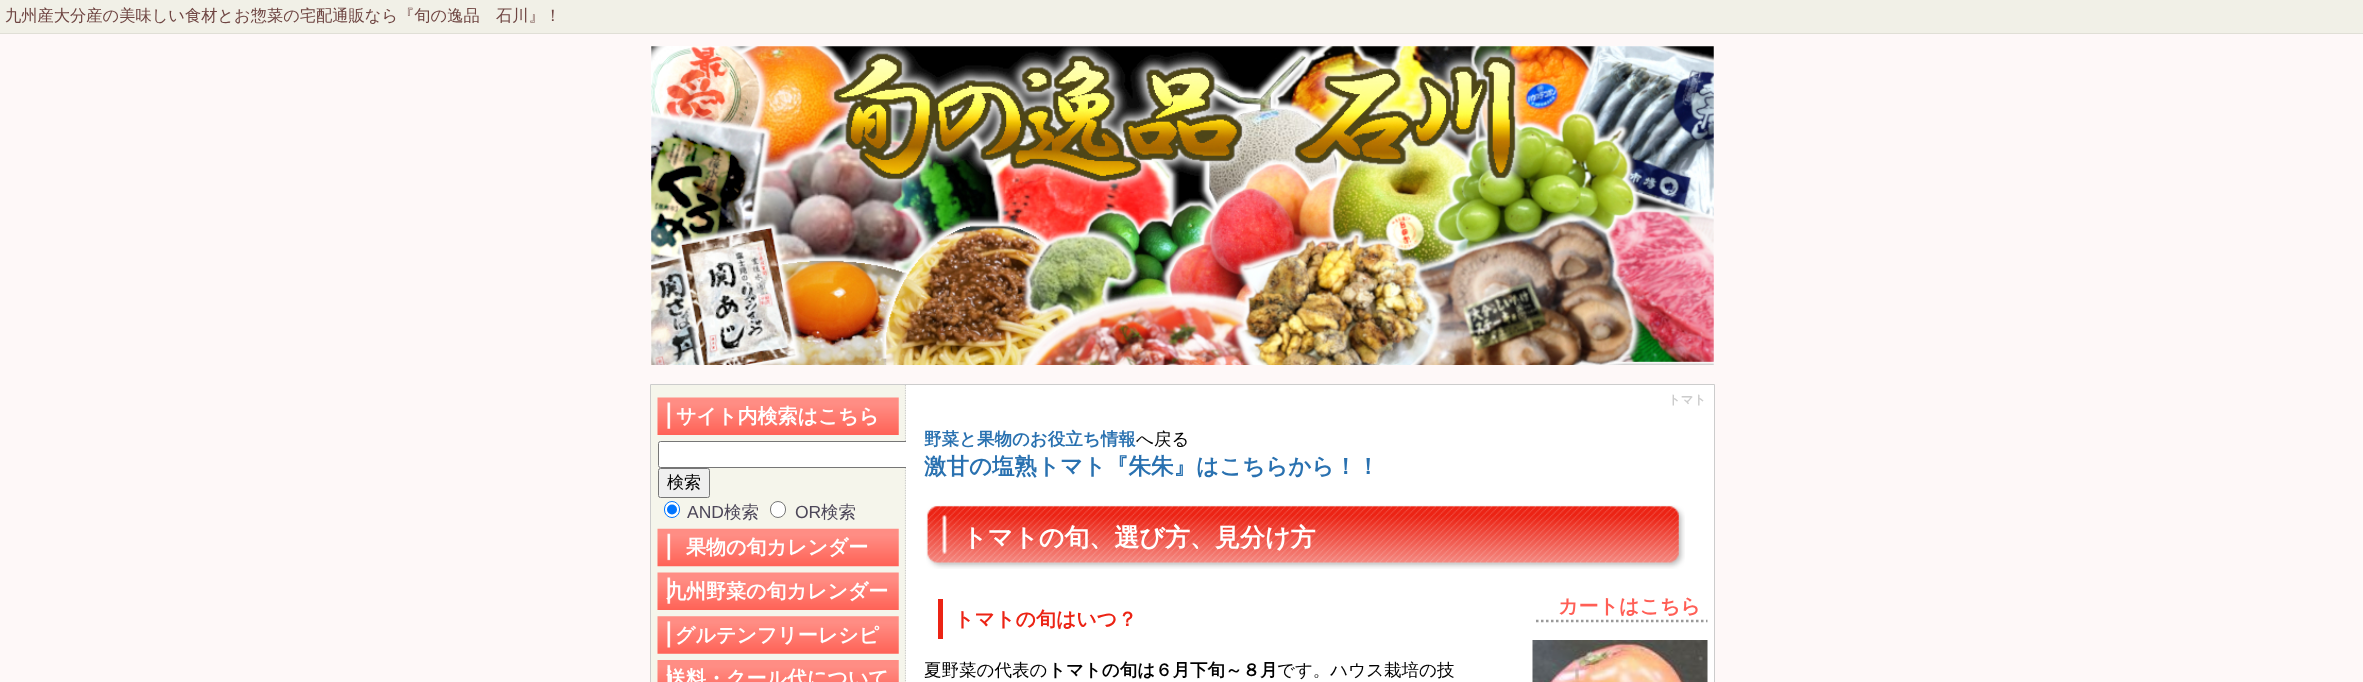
<svg xmlns="http://www.w3.org/2000/svg" width="2363" height="682">
<style>
.a{font:500 16.25px WenQuanYi Zen Hei;fill:#6e4441}
.b{font:bold 20px WenQuanYi Zen Hei;fill:#fff}
.c{font:500 17px WenQuanYi Zen Hei;fill:#000}
.d{font:17.5px Liberation Sans;fill:#4d4759}
.e{font:500 17.5px WenQuanYi Zen Hei;fill:#4d4759}
.f{font:bold 12.5px WenQuanYi Zen Hei;fill:#ccc}
.g{font:bold 17.5px WenQuanYi Zen Hei;fill:#2971b0}
.h{font:500 17.5px WenQuanYi Zen Hei;fill:#000}
.i{font:bold 22.5px WenQuanYi Zen Hei;fill:#2971b0}
.j{font:bold 25px WenQuanYi Zen Hei;fill:#fff}
.k{font:bold 20px WenQuanYi Zen Hei;fill:#ec2314}
.l{font:bold 17.5px WenQuanYi Zen Hei;fill:#000}
.m{font:bold 20px WenQuanYi Zen Hei;fill:#ff5e55}
</style>
<defs>
<clipPath id="clip1"><path d="M651 385h255v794H651z"/></clipPath>
</defs>
<rect width="100%" height="100%" fill="#fef8f8"/>
<path fill="#f1f0e7" d="M0 0h2363v33H0z"/>
<path fill="#e0dfd6" d="M0 33h2363v1H0z"/>
<path fill="#fff" d="M651 46h1063v319H651z"/>
<image href="1.png" x="651" y="46" width="1063" height="319"/>
<path fill="#fff" d="M906 385h808v297H906z"/>
<path fill="none" stroke="#ccc" d="M650.5 384.5h1064v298H650.5z"/>
<path fill="#f5f5eb" d="M651 385h255v297H651z"/>
<g clip-path="url(#clip1)">
<path fill="none" stroke="#ccc" stroke-width="1.2" stroke-dasharray="1.25 1.25" d="M905.5 385v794"/>
</g>
<image href="2.png" x="657" y="397" width="242" height="38"/>
<path fill="#fff" d="M660.5 441h245.5v27h-245.5c-1.5 0-2.5-1-2.5-2.5v-22c0-1.5 1-2.5 2.5-2.5z"/>
<rect fill="#efefef" stroke="#767676" x="658.5" y="468.5" width="51" height="29" rx="2"/>
<rect fill="#fff" stroke="#0075ff" x="664.5" y="501.5" width="15" height="16" rx="7.5"/>
<circle fill="#0075ff" cx="672" cy="509.5" r="5"/>
<rect fill="#fff" stroke="#767676" x="770.5" y="501.5" width="15" height="16" rx="7.5"/>
<image href="3.png" x="657" y="528" width="242" height="39"/>
<image href="2.png" x="657" y="572" width="242" height="38"/>
<image href="4.png" x="657" y="616" width="242" height="38"/>
<image href="5.png" x="657" y="660" width="242" height="22"/>
<image href="6.png" x="926" y="505" width="759" height="64"/>
<path fill="#ec2314" d="M938 599h5v40H938z"/>
<path fill="none" stroke="#999" stroke-width="2.5" stroke-dasharray="2.5 2.5" d="M1536 621h171.5"/>
<image href="7.png" x="1532" y="640" width="176" height="42"/>
<text class="a" x="5" y="21">九州産大分産の美味しい食材とお惣菜の宅配通販なら『旬の逸品　石川』！</text>
<text class="b" x="676" y="423">サイト内検索はこちら</text>
<text class="c" x="667" y="488">検索</text>
<text class="d" x="687" y="518">AND</text>
<text class="e" x="724" y="518">検索</text>
<text class="d" x="795" y="518">OR</text>
<text class="e" x="821" y="518">検索</text>
<text class="b" x="686" y="554">果物の旬カレンダー</text>
<text class="b" x="666" y="598">九州野菜の旬カレンダー</text>
<text class="b" x="675" y="642">グルテンフリーレシピ</text>
<text class="b" x="666" y="685">送料・クール代について</text>
<text class="f" x="1668" y="404">トマト</text>
<text class="g" x="924" y="445">野菜と果物のお役立ち情報</text>
<text class="h" x="1136" y="445">へ戻る</text>
<text class="i" x="924" y="474">激甘の塩熟トマト『朱朱』はこちらから！！</text>
<g clip-path="url(#clip1)">
<rect fill="none" stroke="#767676" x="658.5" y="441.5" width="530" height="26" rx="2"/>
</g>
<text class="j" x="962" y="546">トマトの旬、選び方、見分け方</text>
<text class="k" x="954" y="626">トマトの旬はいつ？</text>
<text class="h" x="924" y="676">夏野菜の代表の</text>
<text class="l" x="1048" y="676">トマトの旬は６月下旬～８月</text>
<text class="h" x="1277" y="676">です。ハウス栽培の技</text>
<text class="m" x="1558" y="613">カートはこちら</text>
</svg>
